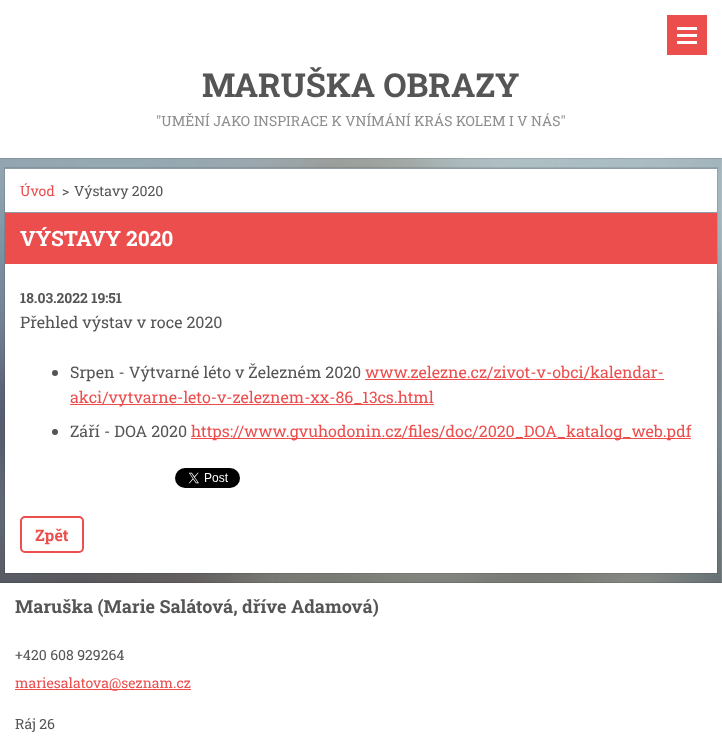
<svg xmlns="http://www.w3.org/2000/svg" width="722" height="736">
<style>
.a{font:bold 33px Roboto Slab;fill:#555}
.b{font:14px Roboto Slab;fill:#8f8f8f}
.c{font:14px Roboto Slab;fill:#ec4e4e}
.d{font:14px Roboto Slab;fill:#555}
.e{font:bold 21px Roboto Slab;fill:#fff}
.f{font:bold 14px Roboto Slab;fill:#555}
.g{font:16px Roboto Slab;fill:#555}
.h{font:16px Roboto Slab;fill:#ec4e4e}
.i{font:bold 16px Roboto Slab;fill:#ec4e4e}
.j{font:bold 18px Roboto Slab;fill:#555}
</style>
<rect width="100%" height="100%" fill="#fff"/>
<image href="1.png" x="0" y="158" width="722" height="425"/>
<path fill="none" stroke="#0000001a" d="M-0.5 -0.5h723v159H-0.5z"/>
<path fill="#ec4e4e" d="M667 15h40v40H667z"/>
<path fill="#fff" d="M677 27h20v3H677z"/>
<path fill="#fff" d="M677 34h20v3H677z"/>
<path fill="#fff" d="M677 41h20v3H677z"/>
<path fill="#fff" d="M5 169h712v43H5z"/>
<path fill="#8d9da3" d="M5 168h712v1H5z"/>
<path fill="none" stroke="#0000001a" d="M4.5 167.5h713v406H4.5z"/>
<path fill="#8d9da3" d="M5 212h712v1H5z"/>
<path fill="#ec4e4e" d="M5 213h712v51H5z"/>
<path fill="#fff" d="M5 264h712v309H5z"/>
<circle fill="#555" cx="55" cy="373" r="3"/>
<path fill="#ec4e4e" d="M365 379h299v1H365z"/>
<path fill="#ec4e4e" d="M70 404h364v1H70z"/>
<circle fill="#555" cx="55" cy="432" r="3"/>
<path fill="#ec4e4e" d="M191 438h500v1H191z"/>
<image href="2.png" x="175" y="468" width="65" height="20"/>
<rect fill="none" stroke="#ec4e4e" stroke-width="2" x="21" y="517" width="62" height="35" rx="4"/>
<path fill="none" stroke="#0000001a" d="M-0.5 582.5h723v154H-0.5z"/>
<path fill="#ec4e4e" d="M15 689h176v1H15z"/>
<text class="a" x="202" y="97">MARUŠKA OBRAZY</text>
<text class="b" x="156" y="126">"UMĚNÍ JAKO INSPIRACE K VNÍMÁNÍ KRÁS KOLEM I V NÁS"</text>
<text class="c" x="20" y="196">Úvod</text>
<text class="d" x="62" y="196">&gt;</text>
<text class="d" x="74" y="196">Výstavy 2020</text>
<text class="e" x="20" y="246">VÝSTAVY 2020</text>
<text class="f" x="20" y="303">18.03.2022 19:51</text>
<text class="g" x="20" y="328">Přehled výstav v roce 2020</text>
<text class="g" x="70" y="378">Srpen - Výtvarné léto v Železném 2020</text>
<text class="h" x="365" y="378">www.zelezne.cz/zivot-v-obci/kalendar-</text>
<text class="h" x="70" y="403">akci/vytvarne-leto-v-zeleznem-xx-86_13cs.html</text>
<text class="g" x="70" y="437">Září - DOA 2020</text>
<text class="h" x="191" y="437">https://www.gvuhodonin.cz/files/doc/2020_DOA_katalog_web.pdf</text>
<text class="i" x="35" y="541">Zpět</text>
<text class="j" x="15" y="613">Maruška (Marie Salátová, dříve Adamová)</text>
<text class="d" x="15" y="660">+420 608 929264</text>
<text class="c" x="15" y="688">mariesalatova@seznam.cz</text>
<text class="d" x="15" y="729">Ráj 26</text>
</svg>
